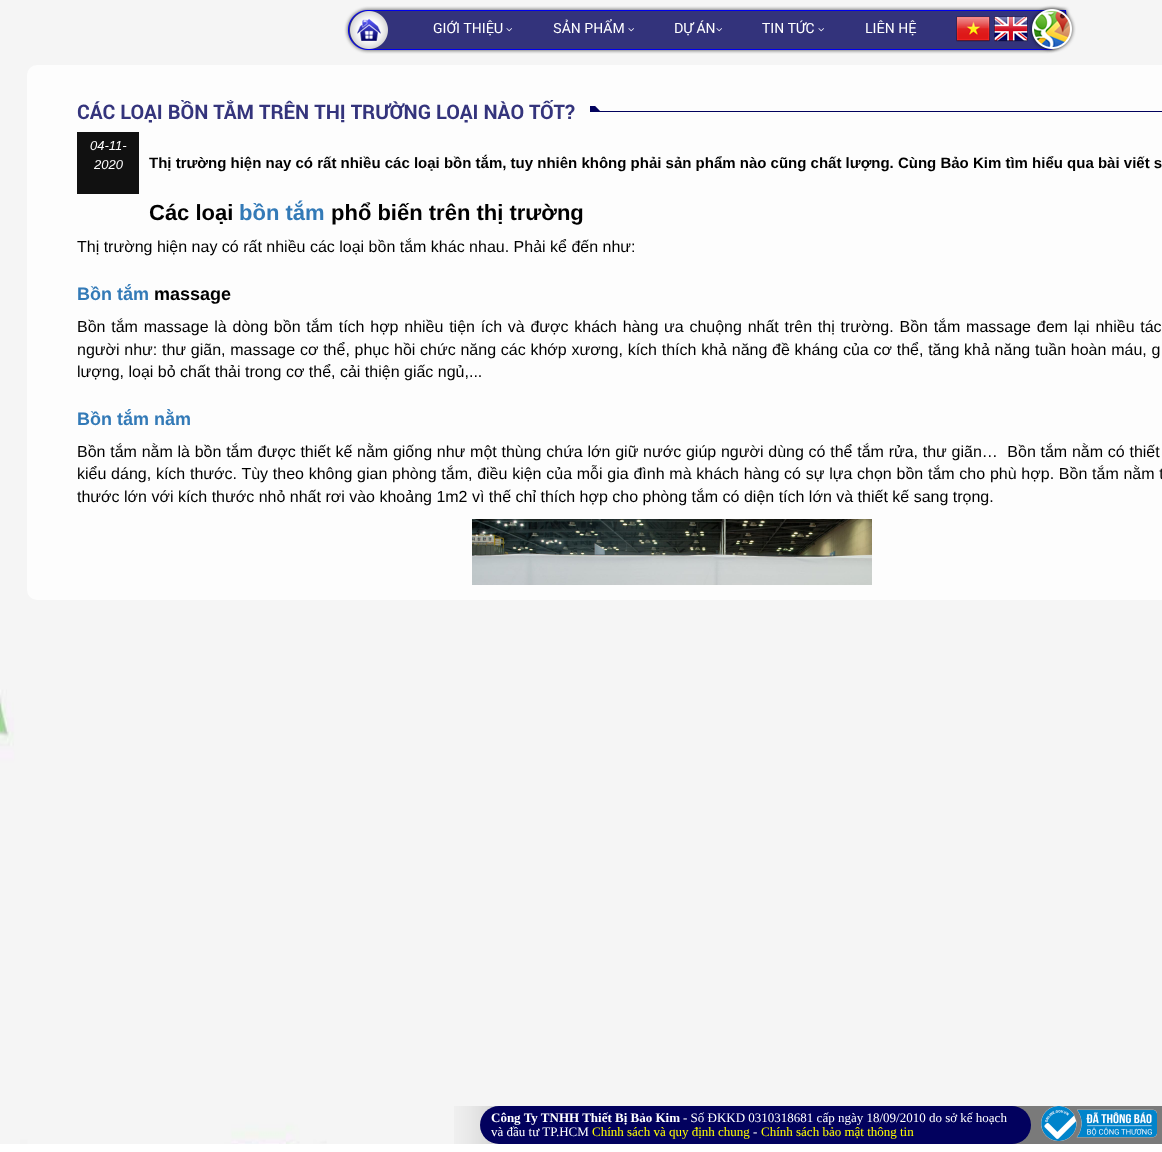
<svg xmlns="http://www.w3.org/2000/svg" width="1162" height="1152">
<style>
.a{font:14px Roboto;fill:#fff}
.b{font:bold 20px Roboto;fill:#34347c}
.c{font:italic 13px Liberation Sans;fill:#fff}
.d{font:bold 15px Liberation Sans;fill:#000}
.e{font:bold 22px Liberation Sans;fill:#000}
.f{font:bold 22px Liberation Sans;fill:#337ab7}
.g{font:16px Liberation Sans;fill:#000}
.h{font:bold 18px Liberation Sans;fill:#337ab7}
.i{font:bold 18px Liberation Sans;fill:#000}
.j{font:bold 13px Liberation Serif;fill:#fff}
.k{font:13px Liberation Serif;fill:#fff}
.l{font:13px Liberation Serif;fill:#ff0}
</style>
<defs>
<clipPath id="clip1"><path d="M77 100h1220v32H77z"/></clipPath>
</defs>
<rect width="100%" height="100%" fill="#fff"/>
<image href="1.png" x="0" y="0" width="1162" height="1144"/>
<image href="2.png" x="344" y="6" width="727" height="48"/>
<image href="3.png" x="350" y="11" width="38" height="38"/>
<image href="4.png" x="506" y="28" width="6" height="4"/>
<image href="4.png" x="628" y="28" width="6" height="4"/>
<image href="4.png" x="716" y="28" width="6" height="4"/>
<image href="4.png" x="818" y="28" width="6" height="4"/>
<image href="5.png" x="956" y="16" width="34" height="26"/>
<image href="6.png" x="994" y="16" width="34" height="26"/>
<image href="7.png" x="1029" y="5" width="47" height="48"/>
<rect fill="#fdfdfd" x="27" y="65" width="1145" height="535" rx="10"/>
<image href="8.png" x="590" y="106" width="572" height="6"/>
<path fill="#111" d="M77 132h62v62H77z"/>
<image href="9.png" x="472" y="519" width="400" height="66"/>
<image href="10.png" x="454" y="1106" width="708" height="38"/>
<rect fill="#02015e" x="480" y="1106" width="551" height="38" rx="19"/>
<image href="11.png" x="1041" y="1106" width="116" height="35"/>
<text class="a" x="433" y="33">GIỚI THIỆU</text>
<text class="a" x="553" y="33">SẢN PHẨM</text>
<text class="a" x="674" y="33">DỰ ÁN</text>
<text class="a" x="762" y="33">TIN TỨC</text>
<text class="a" x="865" y="33">LIÊN HỆ</text>
<g clip-path="url(#clip1)">
<text class="b" x="77" y="119">CÁC LOẠI BỒN TẮM TRÊN THỊ TRƯỜNG LOẠI NÀO TỐT?</text>
</g>
<text class="c" x="90" y="150">04-11-</text>
<text class="c" x="94" y="169">2020</text>
<text class="d" x="149" y="168">Thị trường hiện nay có rất nhiều các loại bồn tắm, tuy nhiên không phải sản phẩm nào cũng chất lượng. Cùng Bảo Kim tìm hiểu qua bài viết s</text>
<text class="e" x="149" y="220">Các loại</text>
<text class="f" x="239" y="220">bồn tắm</text>
<text class="e" x="331" y="220">phổ biến trên thị trường</text>
<text class="g" x="77" y="252">Thị trường hiện nay có rất nhiều các loại bồn tắm khác nhau. Phải kể đến như:</text>
<text class="h" x="77" y="300">Bồn tắm</text>
<text class="i" x="154" y="300">massage</text>
<text class="g" x="77" y="332" word-spacing="1.3">Bồn tắm massage là dòng bồn tắm tích hợp nhiều tiện ích và được khách hàng ưa chuộng nhất trên thị trường. Bồn tắm massage đem lại nhiều tác</text>
<text class="g" x="77" y="355" word-spacing="0.3">người như: thư giãn, massage cơ thể, phục hồi chức năng các khớp xương, kích thích khả năng đề kháng của cơ thể, tăng khả năng tuần hoàn máu, g</text>
<text class="g" x="77" y="377">lượng, loại bỏ chất thải trong cơ thể, cải thiện giấc ngủ,...</text>
<text class="h" x="77" y="425">Bồn tắm nằm</text>
<text class="g" xml:space="preserve" x="77" y="457" word-spacing="0.3">Bồn tắm nằm là bồn tắm được thiết kế nằm giống như một thùng chứa lớn giữ nước giúp người dùng có thể tắm rửa, thư giãn…  Bồn tắm nằm có thiết</text>
<text class="g" x="77" y="479" word-spacing="0.3">kiểu dáng, kích thước. Tùy theo không gian phòng tắm, điều kiện của mỗi gia đình mà khách hàng có sự lựa chọn bồn tắm cho phù hợp. Bồn tắm nằm t</text>
<text class="g" x="77" y="502">thước lớn với kích thước nhỏ nhất rơi vào khoảng 1m2 vì thế chỉ thích hợp cho phòng tắm có diện tích lớn và thiết kế sang trọng.</text>
<text class="j" x="491" y="1122">Công Ty TNHH Thiết Bị Bảo Kim</text>
<text class="k" x="683" y="1122">- Số ĐKKD 0310318681 cấp ngày 18/09/2010 do sở kế hoạch</text>
<text class="k" x="491" y="1136">và đầu tư TP.HCM</text>
<text class="l" x="592" y="1136">Chính sách và quy định chung</text>
<text class="k" x="753" y="1136">-</text>
<text class="l" x="761" y="1136">Chính sách bảo mật thông tin</text>
</svg>
